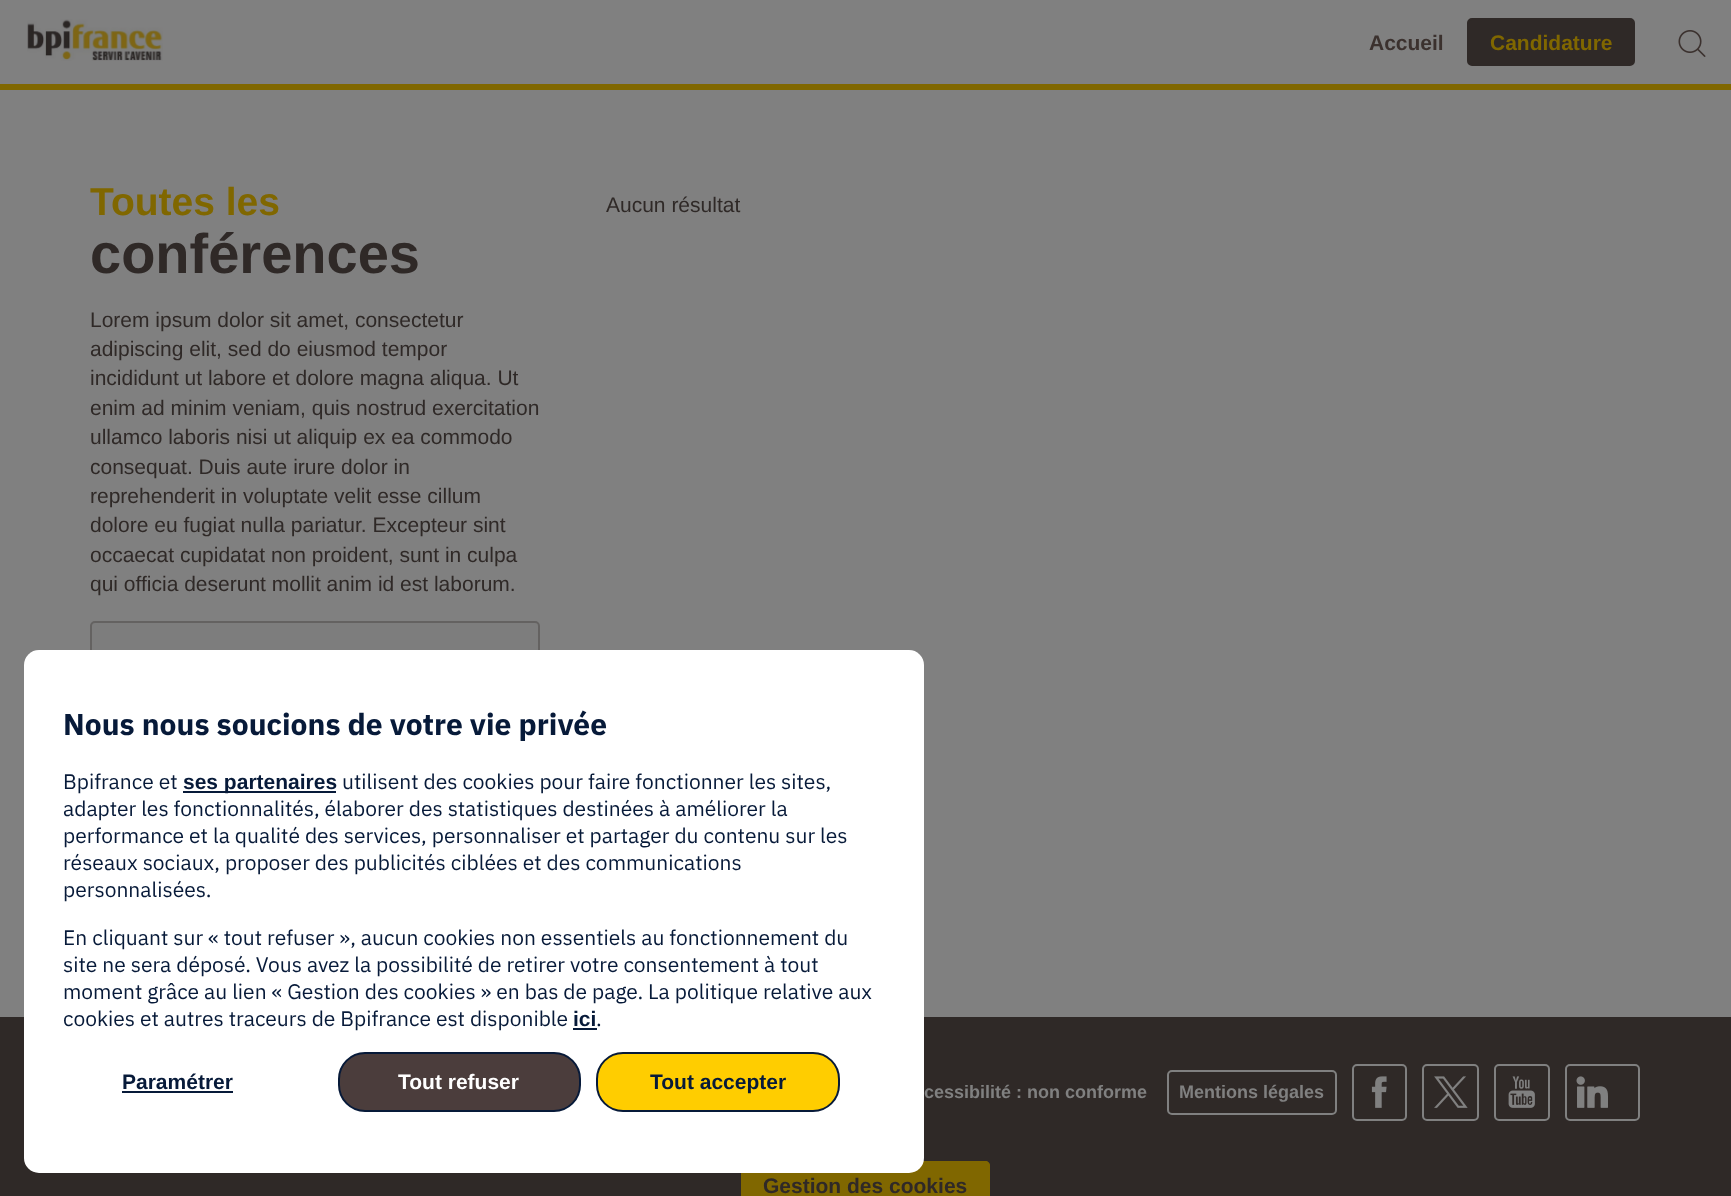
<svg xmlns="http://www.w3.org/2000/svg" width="1731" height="1196">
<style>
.a{font:bold 21px Liberation Sans;fill:#3b312e}
.b{font:bold 21px Liberation Sans;fill:#806700}
.c{font:bold 39px Liberation Sans;fill:#806700}
.d{font:bold 56px Liberation Sans;fill:#2f2927}
.e{font:21px Liberation Sans;fill:#2f2927}
.f{font:bold 18px Liberation Sans;fill:#808080}
.g{font:bold 21px Liberation Sans;fill:#2f2927}
.h{font:bold 30px IBM Plex Sans;fill:#071a39}
.i{font:21px IBM Plex Sans;fill:#071a39}
.j{font:bold 21px Liberation Sans;fill:#071a39}
.k{font:bold 21px Liberation Sans;fill:#fff}
</style>
<rect width="100%" height="100%" fill="#2f2927"/>
<path fill="#808080" d="M0 0h1731v84H0z"/>
<path fill="#806700" d="M0 84h1731v6H0z"/>
<image href="1.png" x="27" y="19" width="136" height="42"/>
<rect fill="#2f2927" stroke="#2f2927" stroke-width="2" x="1468" y="19" width="166" height="46" rx="4"/>
<image href="2.png" x="1678" y="30" width="28" height="27"/>
<path fill="#808080" d="M0 90h1731v927H0z"/>
<rect fill="#7d7d7d" stroke="#646261" stroke-width="2" x="91" y="622" width="448" height="66" rx="4"/>
<rect fill="none" stroke="#808080" stroke-width="2" x="1168" y="1071" width="168" height="43" rx="4"/>
<rect fill="none" stroke="#808080" stroke-width="2" x="1353" y="1065" width="53" height="55" rx="4"/>
<image href="3.png" x="1371" y="1076" width="16" height="32"/>
<rect fill="none" stroke="#808080" stroke-width="2" x="1423" y="1065" width="55" height="55" rx="4"/>
<image href="4.png" x="1434" y="1076" width="34" height="32"/>
<rect fill="none" stroke="#808080" stroke-width="2" x="1495" y="1065" width="54" height="55" rx="4"/>
<image href="5.png" x="1508" y="1076" width="27" height="32"/>
<rect fill="none" stroke="#808080" stroke-width="2" x="1566" y="1065" width="73" height="55" rx="4"/>
<image href="6.png" x="1576" y="1076" width="32" height="32"/>
<path fill="#806700" d="M746 1161h239c3 0 5 2 5 5v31h-249v-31c0-3 2-5 5-5z"/>
<rect fill="none" stroke="#806700" stroke-width="2" x="742" y="1162" width="247" height="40" rx="4"/>
<rect fill="#fff" x="24" y="650" width="900" height="523" rx="15"/>
<path fill="#071a39" d="M183 791h153v2H183z"/>
<path fill="#071a39" d="M573 1028h24v2H573z"/>
<path fill="#071a39" d="M122 1091h111v2H122z"/>
<rect fill="#4b3d3c" stroke="#071a39" stroke-width="2" x="339" y="1053" width="241" height="58" rx="26"/>
<rect fill="#ffcd00" stroke="#071a39" stroke-width="2" x="597" y="1053" width="242" height="58" rx="26"/>
<text class="a" x="1369" y="50">Accueil</text>
<text class="b" x="1490" y="50">Candidature</text>
<text class="c" x="90" y="215">Toutes les</text>
<text class="d" x="90" y="273">conférences</text>
<text class="e" x="90" y="327">Lorem ipsum dolor sit amet, consectetur</text>
<text class="e" x="90" y="356">adipiscing elit, sed do eiusmod tempor</text>
<text class="e" x="90" y="385">incididunt ut labore et dolore magna aliqua. Ut</text>
<text class="e" x="90" y="415">enim ad minim veniam, quis nostrud exercitation</text>
<text class="e" x="90" y="444">ullamco laboris nisi ut aliquip ex ea commodo</text>
<text class="e" x="90" y="474">consequat. Duis aute irure dolor in</text>
<text class="e" x="90" y="503">reprehenderit in voluptate velit esse cillum</text>
<text class="e" x="90" y="532">dolore eu fugiat nulla pariatur. Excepteur sint</text>
<text class="e" x="90" y="562">occaecat cupidatat non proident, sunt in culpa</text>
<text class="e" x="90" y="591">qui officia deserunt mollit anim id est laborum.</text>
<text class="e" x="606" y="212">Aucun résultat</text>
<text class="f" x="924" y="1098">cessibilité : non conforme</text>
<text class="f" x="1179" y="1098">Mentions légales</text>
<text class="g" x="763" y="1193">Gestion des cookies</text>
<text class="h" x="63" y="735">Nous nous soucions de votre vie privée</text>
<text class="i" x="63" y="789">Bpifrance et</text>
<text class="j" x="183" y="789">ses partenaires</text>
<text class="i" x="342" y="789">utilisent des cookies pour faire fonctionner les sites,</text>
<text class="i" x="63" y="816">adapter les fonctionnalités, élaborer des statistiques destinées à améliorer la</text>
<text class="i" x="63" y="843">performance et la qualité des services, personnaliser et partager du contenu sur les</text>
<text class="i" x="63" y="870">réseaux sociaux, proposer des publicités ciblées et des communications</text>
<text class="i" x="63" y="897">personnalisées.</text>
<text class="i" x="63" y="945">En cliquant sur « tout refuser », aucun cookies non essentiels au fonctionnement du</text>
<text class="i" x="63" y="972">site ne sera déposé. Vous avez la possibilité de retirer votre consentement à tout</text>
<text class="i" x="63" y="999">moment grâce au lien « Gestion des cookies » en bas de page. La politique relative aux</text>
<text class="i" x="63" y="1026">cookies et autres traceurs de Bpifrance est disponible</text>
<text class="j" x="573" y="1026">ici</text>
<text class="i" x="596" y="1026">.</text>
<text class="j" x="122" y="1089">Paramétrer</text>
<text class="k" x="398" y="1089">Tout refuser</text>
<text class="j" x="650" y="1089">Tout accepter</text>
</svg>
